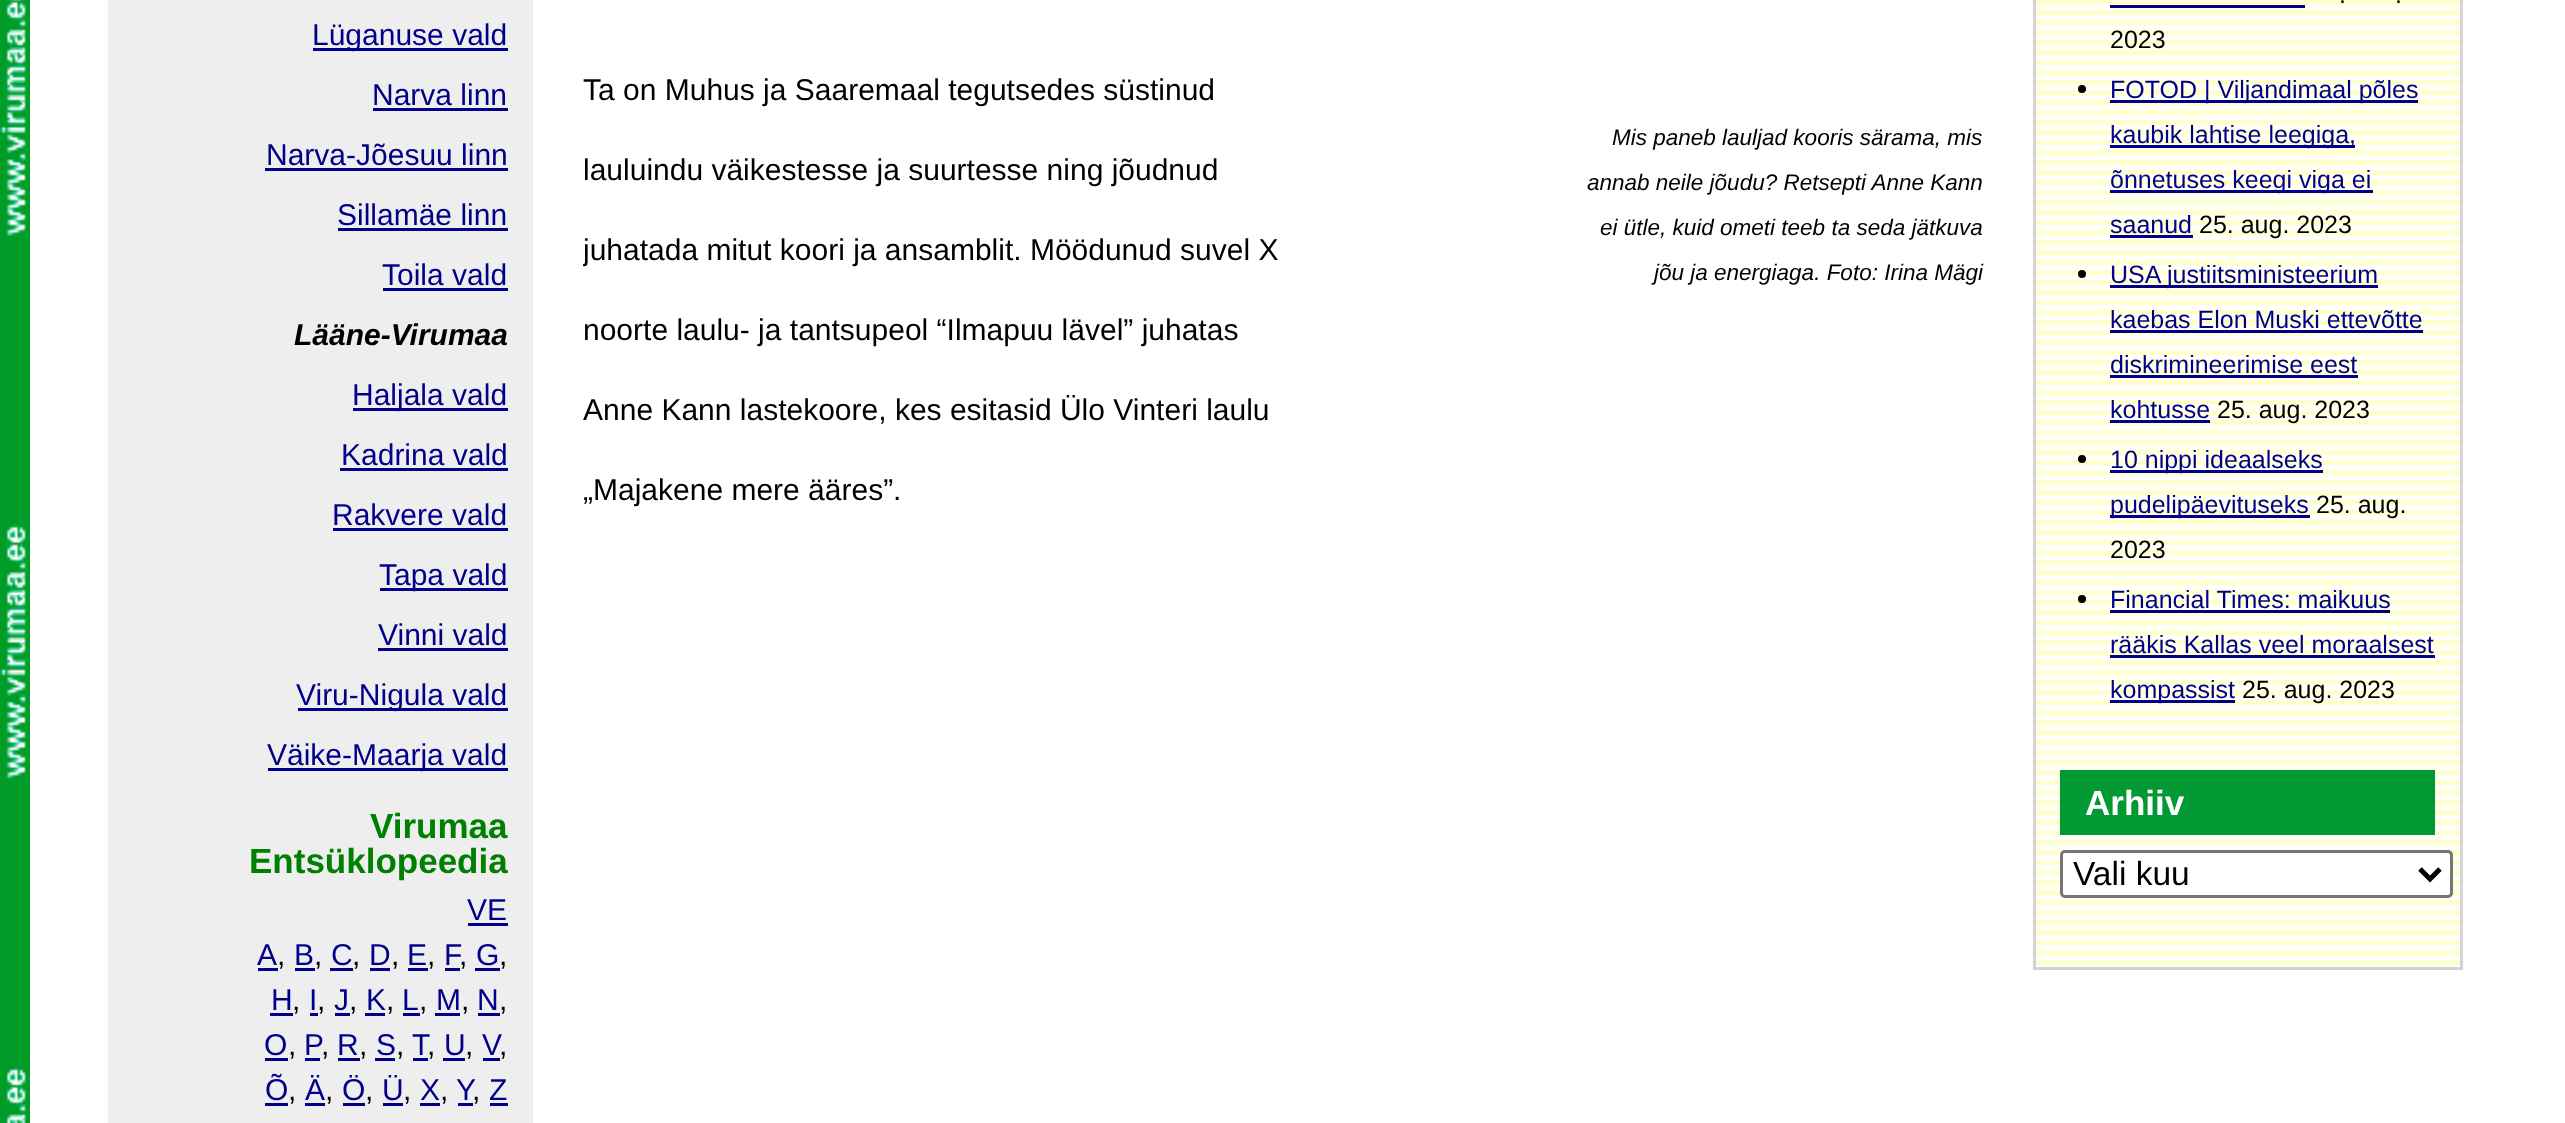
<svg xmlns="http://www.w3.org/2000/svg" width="2565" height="1123">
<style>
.a{font:30px Liberation Sans;fill:#00008b}
.b{font:italic bold 30px Liberation Sans;fill:#000}
.c{font:bold 35px Liberation Sans;fill:#008000}
.d{font:30px Liberation Sans;fill:#000}
.e{font:italic 22.5px Liberation Sans;fill:#000}
.f{font:25px Liberation Sans;fill:#000}
.g{font:25px Liberation Sans;fill:#00008b}
.h{font:bold 35px Liberation Sans;fill:#fff}
.i{font:33.5px Liberation Sans;fill:#000}
</style>
<defs>
<clipPath id="clip1"><path d="M583 0h1400v640H583z"/></clipPath>
</defs>
<rect width="100%" height="100%" fill="#fff"/>
<image href="1.png" x="0" y="0" width="30" height="1123"/>
<path fill="#eee" d="M108 0h425v1123H108z"/>
<path fill="#00008b" d="M313 48h195v3H313z"/>
<path fill="#00008b" d="M373 108h135v3H373z"/>
<path fill="#00008b" d="M265 168h243v3H265z"/>
<path fill="#00008b" d="M338 228h170v3H338z"/>
<path fill="#00008b" d="M383 288h125v3H383z"/>
<path fill="#00008b" d="M353 408h155v3H353z"/>
<path fill="#00008b" d="M340 468h168v3H340z"/>
<path fill="#00008b" d="M333 528h175v3H333z"/>
<path fill="#00008b" d="M380 588h128v3H380z"/>
<path fill="#00008b" d="M378 648h130v3H378z"/>
<path fill="#00008b" d="M298 708h210v3H298z"/>
<path fill="#00008b" d="M268 768h240v3H268z"/>
<path fill="#00008b" d="M468 923h40v3H468z"/>
<path fill="#00008b" d="M258 968h20v3H258z"/>
<path fill="#00008b" d="M295 968h20v3H295z"/>
<path fill="#00008b" d="M330 968h23v3H330z"/>
<path fill="#00008b" d="M370 968h20v3H370z"/>
<path fill="#00008b" d="M408 968h20v3H408z"/>
<path fill="#00008b" d="M445 968h15v3H445z"/>
<path fill="#00008b" d="M475 968h25v3H475z"/>
<path fill="#00008b" d="M270 1013h23v3H270z"/>
<path fill="#00008b" d="M310 1013h8v3H310z"/>
<path fill="#00008b" d="M335 1013h15v3H335z"/>
<path fill="#00008b" d="M365 1013h20v3H365z"/>
<path fill="#00008b" d="M403 1013h17v3H403z"/>
<path fill="#00008b" d="M435 1013h25v3H435z"/>
<path fill="#00008b" d="M478 1013h22v3H478z"/>
<path fill="#00008b" d="M265 1058h23v3H265z"/>
<path fill="#00008b" d="M305 1058h15v3H305z"/>
<path fill="#00008b" d="M338 1058h22v3H338z"/>
<path fill="#00008b" d="M375 1058h20v3H375z"/>
<path fill="#00008b" d="M413 1058h15v3H413z"/>
<path fill="#00008b" d="M443 1058h22v3H443z"/>
<path fill="#00008b" d="M483 1058h17v3H483z"/>
<path fill="#00008b" d="M265 1103h23v3H265z"/>
<path fill="#00008b" d="M305 1103h20v3H305z"/>
<path fill="#00008b" d="M343 1103h22v3H343z"/>
<path fill="#00008b" d="M383 1103h20v3H383z"/>
<path fill="#00008b" d="M420 1103h20v3H420z"/>
<path fill="#00008b" d="M458 1103h15v3H458z"/>
<path fill="#00008b" d="M490 1103h18v3H490z"/>
<image href="2.png" x="2032" y="0" width="428" height="970"/>
<path fill="none" stroke="#d3d3d3" stroke-width="3" d="M2034.5 -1.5h427v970H2034.5z"/>
<path fill="#00008b" d="M2110 5h195v3H2110z"/>
<circle fill="#000" cx="2082" cy="89" r="4"/>
<path fill="#00008b" d="M2110 100h308v3H2110z"/>
<path fill="#00008b" d="M2110 145h245v3H2110z"/>
<path fill="#00008b" d="M2110 190h263v3H2110z"/>
<path fill="#00008b" d="M2110 235h83v3H2110z"/>
<circle fill="#000" cx="2082" cy="274" r="4"/>
<path fill="#00008b" d="M2110 285h268v3H2110z"/>
<path fill="#00008b" d="M2110 330h313v3H2110z"/>
<path fill="#00008b" d="M2110 375h248v3H2110z"/>
<path fill="#00008b" d="M2110 420h100v3H2110z"/>
<circle fill="#000" cx="2082" cy="459" r="4"/>
<path fill="#00008b" d="M2110 470h213v3H2110z"/>
<path fill="#00008b" d="M2110 515h200v3H2110z"/>
<circle fill="#000" cx="2082" cy="599" r="4"/>
<path fill="#00008b" d="M2110 610h280v3H2110z"/>
<path fill="#00008b" d="M2110 655h325v3H2110z"/>
<path fill="#00008b" d="M2110 700h125v3H2110z"/>
<path fill="#093" d="M2060 770h375v65H2060z"/>
<rect fill="#fff" stroke="#767676" stroke-width="3" x="2061.5" y="851.5" width="390" height="45" rx="3.5"/>
<path fill="none" stroke="#000" stroke-width="5" d="M2420 869l10 10l10-10"/>
<text class="a" x="312" y="45">Lüganuse vald</text>
<text class="a" x="372" y="105">Narva linn</text>
<text class="a" x="266" y="165">Narva-Jõesuu linn</text>
<text class="a" x="337" y="225">Sillamäe linn</text>
<text class="a" x="382" y="285">Toila vald</text>
<text class="b" x="294" y="345">Lääne-Virumaa</text>
<text class="a" x="352" y="405">Haljala vald</text>
<text class="a" x="341" y="465">Kadrina vald</text>
<text class="a" x="332" y="525">Rakvere vald</text>
<text class="a" x="379" y="585">Tapa vald</text>
<text class="a" x="378" y="645">Vinni vald</text>
<text class="a" x="296" y="705">Viru-Nigula vald</text>
<text class="a" x="267" y="765">Väike-Maarja vald</text>
<text class="c" x="370" y="838">Virumaa</text>
<text class="c" x="249" y="873">Entsüklopeedia</text>
<text class="a" x="467" y="920">VE</text>
<text class="a" x="257" y="965">A</text>
<text class="d" x="277" y="965">,</text>
<text class="a" x="294" y="965">B</text>
<text class="d" x="314" y="965">,</text>
<text class="a" x="331" y="965">C</text>
<text class="d" x="352" y="965">,</text>
<text class="a" x="369" y="965">D</text>
<text class="d" x="391" y="965">,</text>
<text class="a" x="407" y="965">E</text>
<text class="d" x="427" y="965">,</text>
<text class="a" x="444" y="965">F</text>
<text class="d" x="459" y="965">,</text>
<text class="a" x="476" y="965">G</text>
<text class="d" x="499" y="965">,</text>
<text class="a" x="271" y="1010">H</text>
<text class="d" x="292" y="1010">,</text>
<text class="a" x="309" y="1010">I</text>
<text class="d" x="317" y="1010">,</text>
<text class="a" x="334" y="1010">J</text>
<text class="d" x="349" y="1010">,</text>
<text class="a" x="366" y="1010">K</text>
<text class="d" x="386" y="1010">,</text>
<text class="a" x="402" y="1010">L</text>
<text class="d" x="419" y="1010">,</text>
<text class="a" x="436" y="1010">M</text>
<text class="d" x="461" y="1010">,</text>
<text class="a" x="477" y="1010">N</text>
<text class="d" x="499" y="1010">,</text>
<text class="a" x="264" y="1055">O</text>
<text class="d" x="288" y="1055">,</text>
<text class="a" x="304" y="1055">P</text>
<text class="d" x="321" y="1055">,</text>
<text class="a" x="337" y="1055">R</text>
<text class="d" x="359" y="1055">,</text>
<text class="a" x="376" y="1055">S</text>
<text class="d" x="396" y="1055">,</text>
<text class="a" x="412" y="1055">T</text>
<text class="d" x="427" y="1055">,</text>
<text class="a" x="444" y="1055">U</text>
<text class="d" x="465" y="1055">,</text>
<text class="a" x="482" y="1055">V</text>
<text class="d" x="499" y="1055">,</text>
<text class="a" x="265" y="1100">Õ</text>
<text class="d" x="288" y="1100">,</text>
<text class="a" x="305" y="1100">Ä</text>
<text class="d" x="325" y="1100">,</text>
<text class="a" x="342" y="1100">Ö</text>
<text class="d" x="365" y="1100">,</text>
<text class="a" x="382" y="1100">Ü</text>
<text class="d" x="403" y="1100">,</text>
<text class="a" x="420" y="1100">X</text>
<text class="d" x="440" y="1100">,</text>
<text class="a" x="456" y="1100">Y</text>
<text class="d" x="472" y="1100">,</text>
<text class="a" x="489" y="1100">Z</text>
<text class="d" x="583" y="100">Ta on Muhus ja Saaremaal tegutsedes süstinud</text>
<text class="d" x="583" y="180">lauluindu väikestesse ja suurtesse ning jõudnud</text>
<text class="e" x="1612" y="145">Mis paneb lauljad kooris särama, mis</text>
<text class="e" x="1587" y="190">annab neile jõudu? Retsepti Anne Kann</text>
<text class="e" x="1600" y="235">ei ütle, kuid ometi teeb ta seda jätkuva</text>
<text class="e" x="1654" y="280">jõu ja energiaga. Foto: Irina Mägi</text>
<g clip-path="url(#clip1)">
<text class="d" x="583" y="260">juhatada mitut koori ja ansamblit. Möödunud suvel X</text>
</g>
<text class="d" x="583" y="340">noorte laulu- ja tantsupeol “Ilmapuu lävel” juhatas</text>
<text class="d" x="583" y="420">Anne Kann lastekoore, kes esitasid Ülo Vinteri laulu</text>
<text class="d" x="583" y="500">„Majakene mere ääres”.</text>
<text class="f" x="2339" y="3">.</text>
<text class="f" x="2395" y="3">.</text>
<text class="f" x="2110" y="48">2023</text>
<text class="g" x="2110" y="98">FOTOD | Viljandimaal põles</text>
<text class="g" x="2110" y="143">kaubik lahtise leegiga,</text>
<text class="g" x="2110" y="188">õnnetuses keegi viga ei</text>
<text class="g" x="2110" y="233">saanud</text>
<text class="f" x="2199" y="233">25. aug. 2023</text>
<text class="g" x="2110" y="283">USA justiitsministeerium</text>
<text class="g" x="2110" y="328">kaebas Elon Muski ettevõtte</text>
<text class="g" x="2110" y="373">diskrimineerimise eest</text>
<text class="g" x="2110" y="418">kohtusse</text>
<text class="f" x="2217" y="418">25. aug. 2023</text>
<text class="g" x="2110" y="468">10 nippi ideaalseks</text>
<text class="g" x="2110" y="513">pudelipäevituseks</text>
<text class="f" x="2316" y="513">25. aug.</text>
<text class="f" x="2110" y="558">2023</text>
<text class="g" x="2110" y="608">Financial Times: maikuus</text>
<text class="g" x="2110" y="653">rääkis Kallas veel moraalsest</text>
<text class="g" x="2110" y="698">kompassist</text>
<text class="f" x="2242" y="698">25. aug. 2023</text>
<text class="h" x="2085" y="815">Arhiiv</text>
<text class="i" x="2073" y="885">Vali kuu</text>
</svg>
